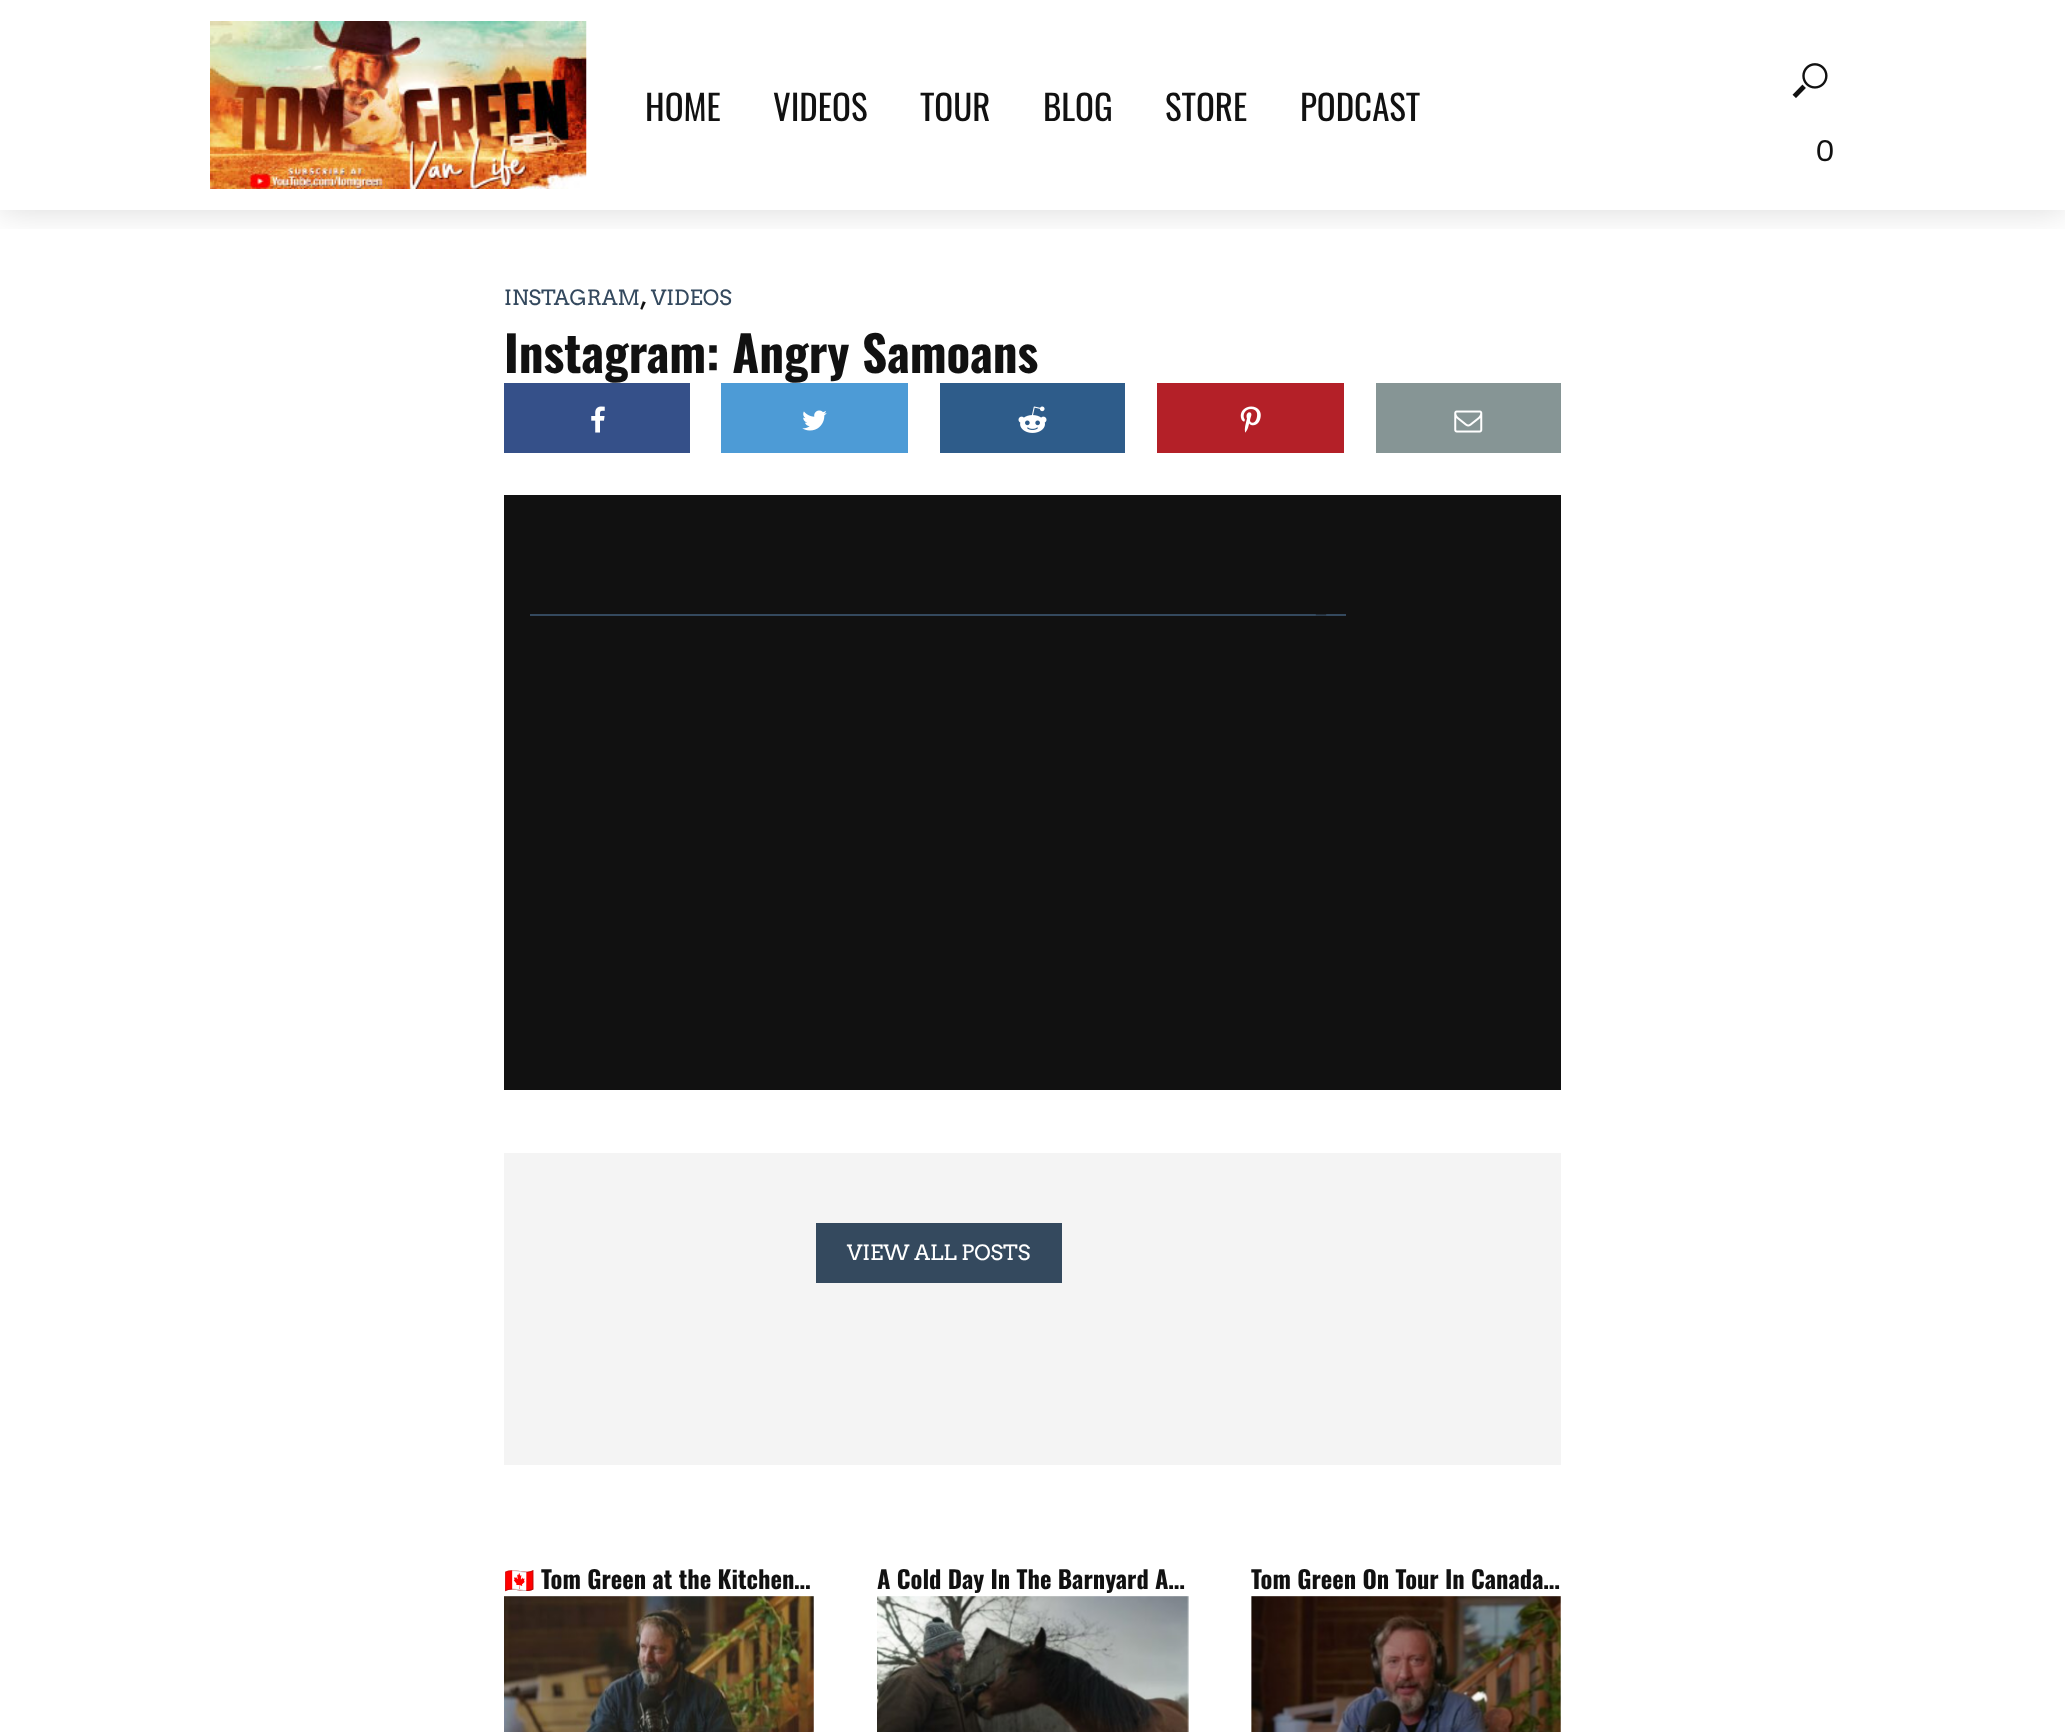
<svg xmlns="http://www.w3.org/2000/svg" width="2065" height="1732">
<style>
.a{font:35px Oswald;fill:#111}
.b{font:28px Arvo;fill:#111}
.c{font:21px Arvo;fill:#34495e}
.d{font:bold 49px Oswald;fill:#111}
.e{font:bold 18px Liberation Sans;fill:#111}
.f{font:21px Arvo;fill:#fff}
.g{font:bold 24.5px Noto Color Emoji;fill:#111}
.h{font:bold 24.5px Oswald;fill:#111}
</style>
<defs>
<clipPath id="clip1"><path d="M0 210h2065v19H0z"/></clipPath>
<clipPath id="clip2"><path d="M1251 1561h310v35H1251z"/></clipPath>
</defs>
<rect width="100%" height="100%" fill="#fff"/>
<g clip-path="url(#clip1)">
<path fill="#00000026" filter="blur(17.5px)" d="M0 0h2065v210H0z"/>
</g>
<image href="1.png" x="210" y="21" width="377" height="168"/>
<image href="2.png" x="1792" y="63" width="36" height="35"/>
<path fill="#355089" d="M504 383h186v70H504z"/>
<image href="3.png" x="591" y="406" width="14" height="27"/>
<path fill="#4d9bd6" d="M721 383h187v70H721z"/>
<image href="4.png" x="802" y="410" width="25" height="21"/>
<path fill="#2e5c8a" d="M940 383h185v70H940z"/>
<image href="5.png" x="1018" y="406" width="29" height="27"/>
<path fill="#b42028" d="M1157 383h187v70H1157z"/>
<image href="6.png" x="1240" y="406" width="21" height="27"/>
<path fill="#869595" d="M1376 383h185v70H1376z"/>
<image href="7.png" x="1454" y="410" width="29" height="23"/>
<path fill="#111" d="M504 495h1057v595H504z"/>
<path fill="#34495e" d="M530 614h816v2H530z"/>
<path fill="#f4f4f4" d="M504 1153h1057v312H504z"/>
<path fill="#34495e" d="M816 1223h246v60H816z"/>
<image href="8.png" x="504" y="1596" width="310" height="136"/>
<image href="9.png" x="877" y="1596" width="312" height="136"/>
<image href="10.png" x="1251" y="1596" width="310" height="136"/>
<text class="a" x="645" y="121">HOME</text>
<text class="a" x="773" y="121">VIDEOS</text>
<text class="a" x="920" y="121">TOUR</text>
<text class="a" x="1043" y="121">BLOG</text>
<text class="a" x="1165" y="121">STORE</text>
<text class="a" x="1300" y="121">PODCAST</text>
<text class="b" x="1816" y="161">0</text>
<text class="c" x="504" y="305">INSTAGRAM</text>
<text class="b" x="640" y="305">,</text>
<text class="c" x="651" y="305">VIDEOS</text>
<text class="d" x="504" y="373">Instagram: Angry Samoans</text>
<text class="e" x="1316" y="613">_</text>
<text class="f" x="847" y="1260">VIEW ALL POSTS</text>
<text class="g" x="504" y="1589">🇨🇦</text>
<text class="h" x="541" y="1589">Tom Green at the Kitchen…</text>
<text class="h" x="877" y="1589">A Cold Day In The Barnyard A…</text>
<g clip-path="url(#clip2)">
<text class="h" x="1251" y="1589">Tom Green On Tour In Canada…</text>
</g>
</svg>
